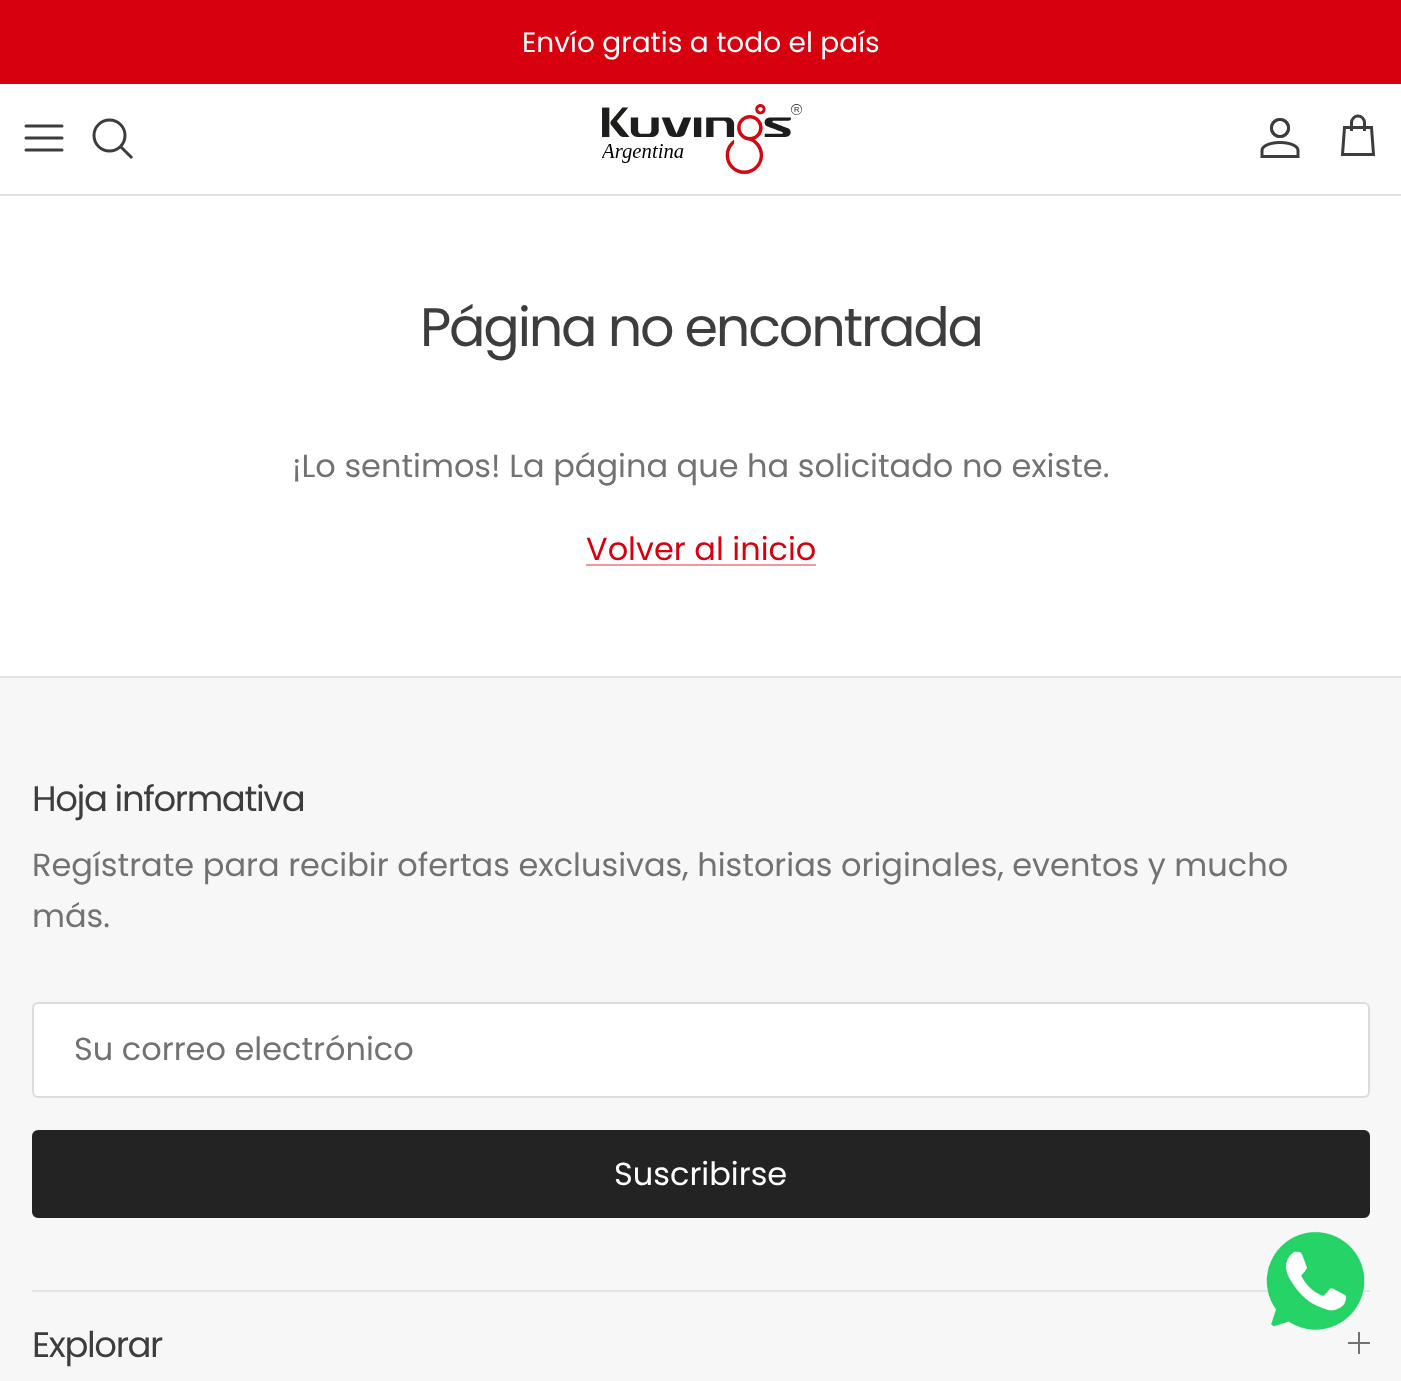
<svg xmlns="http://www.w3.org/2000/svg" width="1401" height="1381">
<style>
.a{font:28px Poppins;fill:#fff}
.b{font:54px Poppins;letter-spacing:-2.2px;fill:#3d3d3d}
.c{font:32px Poppins;fill:#727272}
.d{font:32px Poppins;fill:#d7000f}
.e{font:35.5px Poppins;letter-spacing:-1.4px;fill:#3d3d3d}
.f{font:32px Poppins;fill:#fff}
</style>
<rect width="100%" height="100%" fill="#fff"/>
<path fill="#d7000f" d="M0 0h1401v84H0z"/>
<path fill="#e2e2e2" d="M0 194h1401v2H0z"/>
<path fill="none" stroke="#3d3d3d" stroke-width="3" stroke-linecap="round" stroke-linejoin="round" d="M26 138h36m-36-12h36m-36 24h36"/>
<circle fill="none" stroke="#3d3d3d" stroke-width="3" cx="109.5" cy="135.5" r="15.5"/>
<path fill="none" stroke="#3d3d3d" stroke-width="3" stroke-linecap="square" d="M122 148l9 9"/>
<image href="1.png" x="602" y="104" width="200" height="70"/>
<image href="2.png" x="1260" y="118" width="40" height="40"/>
<path fill="none" stroke="#3d3d3d" stroke-width="3" d="M1364.5 131v-8.5c0-3.5-3-6.5-6.5-6.5c-3.5 0-6.5 3-6.5 6.5v8.5m-7-3.5h27l2 27h-31z"/>
<path fill="#ef999f" d="M586 564h230v2H586z"/>
<path fill="#f7f7f8" d="M0 678h1401v703H0z"/>
<path fill="#e4e4e4" d="M0 676h1401v2H0z"/>
<rect fill="#fff" stroke="#dcdcdc" stroke-width="2" x="33" y="1003" width="1336" height="94" rx="5"/>
<rect fill="#232323" stroke="#232323" stroke-width="2" x="33" y="1131" width="1336" height="86" rx="5"/>
<path fill="#e3e3e4" d="M32 1290h1338v2H32z"/>
<path fill="#727272" d="M1358 1332h2v22H1358z"/>
<path fill="#727272" d="M1348 1342h22v2H1348z"/>
<image href="3.png" x="1266" y="1231" width="99" height="99"/>
<text class="a" x="522" y="52">Envío gratis a todo el país</text>
<text class="b" x="420" y="346">Página no encontrada</text>
<text class="c" x="292" y="477">¡Lo sentimos! La página que ha solicitado no existe.</text>
<text class="d" x="586" y="560">Volver al inicio</text>
<text class="e" x="32" y="811">Hoja informativa</text>
<text class="c" x="32" y="876">Regístrate para recibir ofertas exclusivas, historias originales, eventos y mucho</text>
<text class="c" x="32" y="927">más.</text>
<text class="c" x="74" y="1060">Su correo electrónico</text>
<text class="f" x="614" y="1185">Suscribirse</text>
<text class="e" x="32" y="1357">Explorar</text>
</svg>
